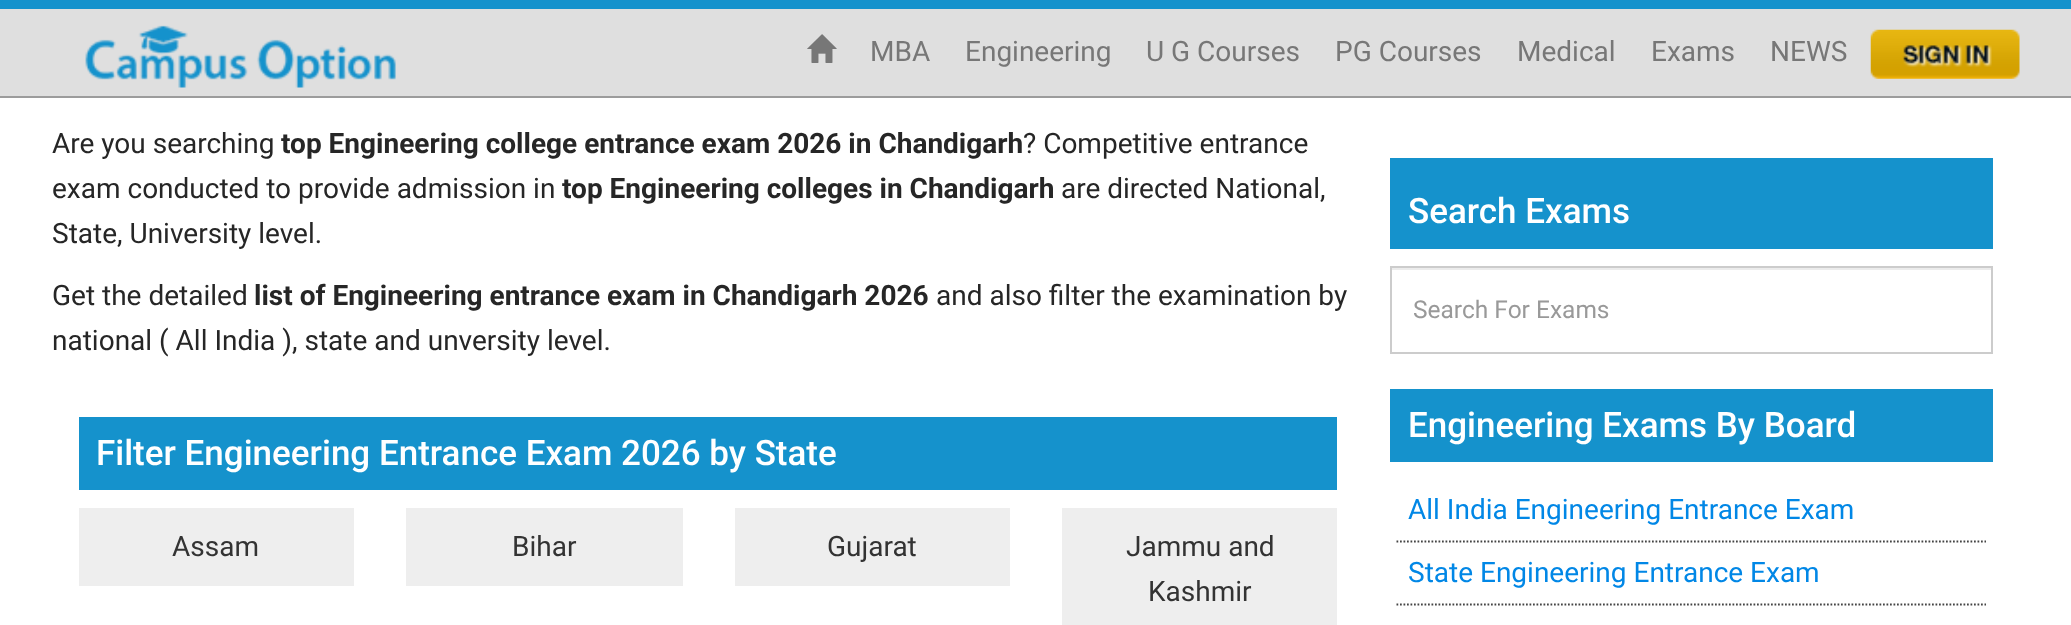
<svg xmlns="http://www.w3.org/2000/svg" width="2071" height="625">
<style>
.a{font:28px Roboto;fill:#777}
.b{font:28px Roboto;fill:#262626}
.c{font:bold 28px Roboto;fill:#262626}
.d{font:500 35px Roboto;fill:#fff}
.e{font:28px Roboto;fill:#333}
.f{font:24.5px Roboto;fill:#999}
.g{font:28px Roboto;fill:#0187e6}
</style>
<rect width="100%" height="100%" fill="#fff"/>
<path fill="#dfdfdf" d="M0 9h2071v87H0z"/>
<path fill="#1592cc" d="M0 0h2071v9H0z"/>
<path fill="#9c9c9c" d="M0 96h2071v2H0z"/>
<image href="1.png" x="85" y="25" width="311" height="63"/>
<image href="2.png" x="807" y="34" width="30" height="29"/>
<image href="3.png" x="1870" y="29" width="150" height="50"/>
<path fill="#1592cc" d="M79 417h1258v73H79z"/>
<path fill="#eee" d="M79 508h275v78H79z"/>
<path fill="#eee" d="M406 508h277v78H406z"/>
<path fill="#eee" d="M735 508h275v78H735z"/>
<path fill="#eee" d="M1062 508h275v117H1062z"/>
<path fill="#1592cc" d="M1390 158h603v91H1390z"/>
<path fill="#ececec" d="M1391 268h601v2H1391z"/>
<path fill="none" stroke="#ccc" stroke-width="2" d="M1391 267h601v86H1391z"/>
<path fill="#1592cc" d="M1390 389h603v73H1390z"/>
<path fill="none" stroke="#444" stroke-width="1.8" stroke-dasharray="1.75 1.75" d="M1396.5 541.5h589.5"/>
<path fill="none" stroke="#444" stroke-width="1.8" stroke-dasharray="1.75 1.75" d="M1396.5 604.5h589.5"/>
<text class="a" x="870" y="61">MBA</text>
<text class="a" x="965" y="61">Engineering</text>
<text class="a" x="1146" y="61">U G Courses</text>
<text class="a" x="1335" y="61">PG Courses</text>
<text class="a" x="1517" y="61">Medical</text>
<text class="a" x="1651" y="61">Exams</text>
<text class="a" x="1770" y="61">NEWS</text>
<text class="b" x="52" y="153">Are you searching</text>
<text class="c" x="281" y="153">top Engineering college entrance exam 2026 in Chandigarh</text>
<text class="b" x="1023" y="153">? Competitive entrance</text>
<text class="b" x="52" y="198">exam conducted to provide admission in</text>
<text class="c" x="562" y="198">top Engineering colleges in Chandigarh</text>
<text class="b" x="1061" y="198">are directed National,</text>
<text class="b" x="52" y="243">State, University level.</text>
<text class="b" x="52" y="305">Get the detailed</text>
<text class="c" x="254" y="305">list of Engineering entrance exam in Chandigarh 2026</text>
<text class="b" x="936" y="305">and also filter the examination by</text>
<text class="b" x="52" y="350">national ( All India ), state and unversity level.</text>
<text class="d" x="96" y="465">Filter Engineering Entrance Exam 2026 by State</text>
<text class="e" x="172" y="556">Assam</text>
<text class="e" x="512" y="556">Bihar</text>
<text class="e" x="827" y="556">Gujarat</text>
<text class="e" x="1126" y="556">Jammu and</text>
<text class="e" x="1148" y="601">Kashmir</text>
<text class="d" x="1408" y="223">Search Exams</text>
<text class="f" x="1413" y="318">Search For Exams</text>
<text class="d" x="1408" y="437">Engineering Exams By Board</text>
<text class="g" x="1408" y="519">All India Engineering Entrance Exam</text>
<text class="g" x="1408" y="582">State Engineering Entrance Exam</text>
</svg>
